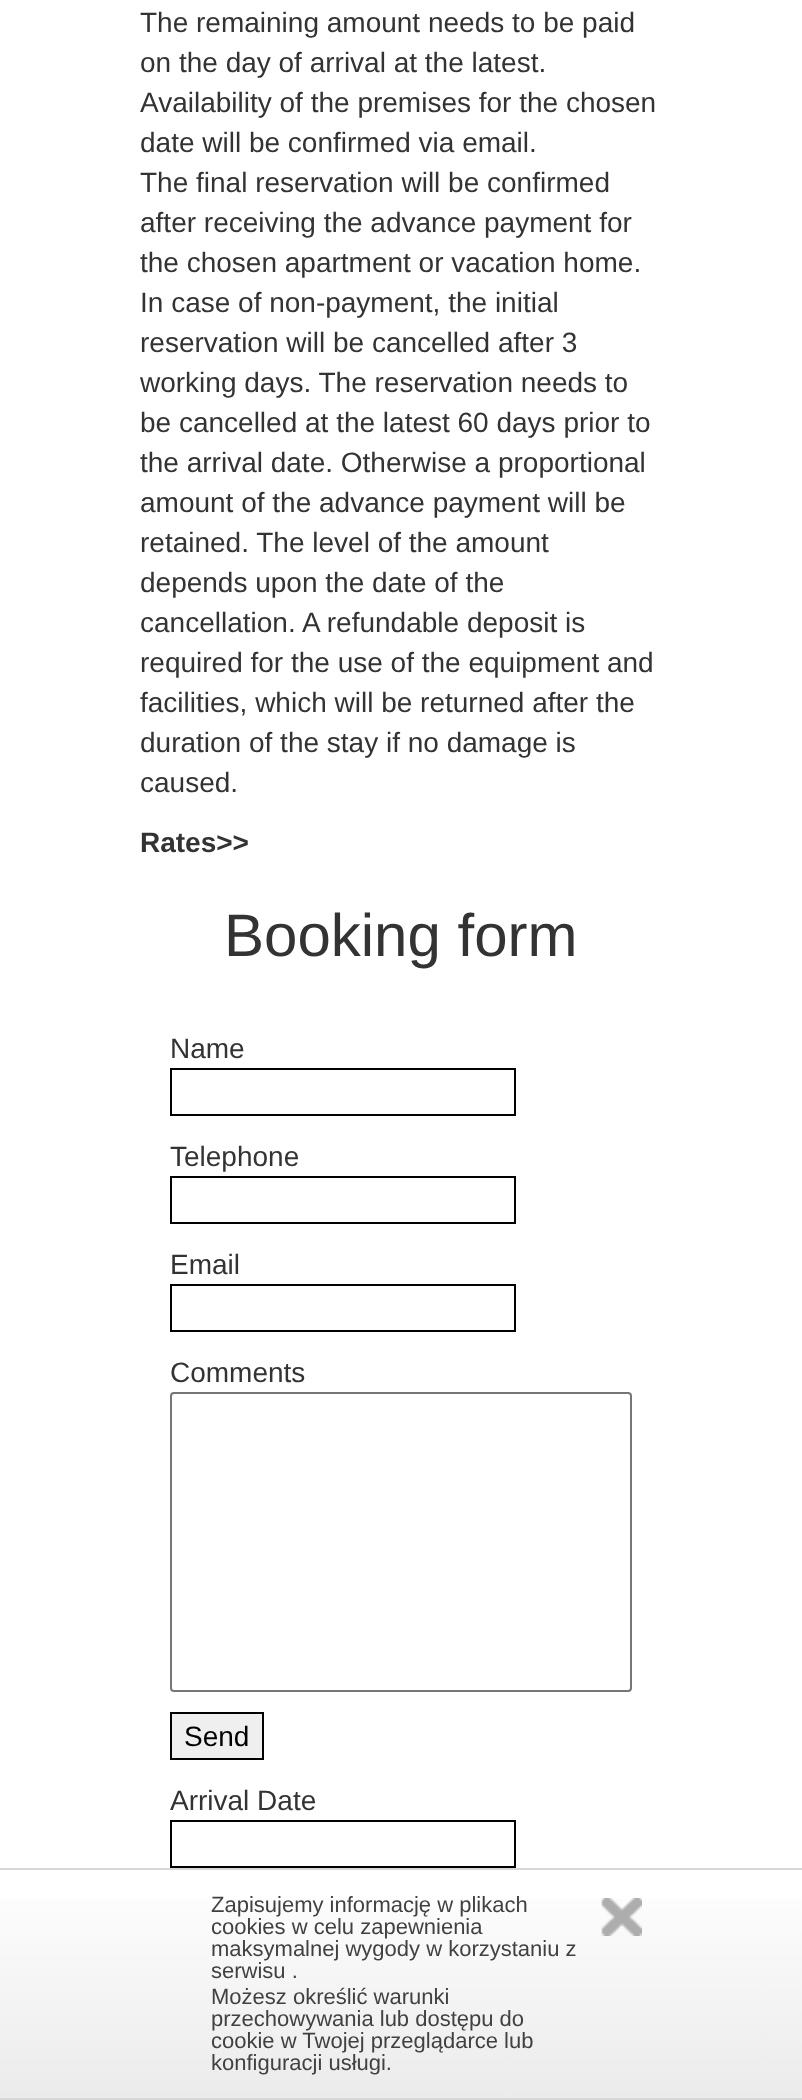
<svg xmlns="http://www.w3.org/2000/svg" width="802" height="2100">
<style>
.a{font:28px Liberation Sans;fill:#333}
.b{font:bold 28px Liberation Sans;fill:#333}
.c{font:60px Liberation Sans;fill:#333}
.d{font:28px Liberation Sans;fill:#000}
.e{font:22px Liberation Sans;fill:#414141}
</style>
<defs>
<linearGradient id="g1" gradientUnits="userSpaceOnUse" x1="401" y1="1870" x2="401" y2="2098"><stop offset="0" stop-color="#fff"/><stop offset="1" stop-color="#ebebeb"/></linearGradient>
</defs>
<rect width="100%" height="100%" fill="#fff"/>
<path fill="none" stroke="#000" stroke-width="2" d="M171 1069h344v46H171z"/>
<path fill="none" stroke="#000" stroke-width="2" d="M171 1177h344v46H171z"/>
<path fill="none" stroke="#000" stroke-width="2" d="M171 1285h344v46H171z"/>
<rect fill="none" stroke="#767676" stroke-width="2" x="171" y="1393" width="460" height="298" rx="3"/>
<path fill="#efefef" stroke="#000" stroke-width="2" d="M171 1713h92v46H171z"/>
<path fill="none" stroke="#000" stroke-width="2" d="M171 1821h344v46H171z"/>
<path fill="url(#g1)" d="M0 1899h802v199H0z"/>
<path fill="#d7d7d7" d="M0 1868h802v2H0z"/>
<path fill="#d7d7d7" d="M0 2098h802v2H0z"/>
<image href="1.png" x="601" y="1898" width="41" height="38"/>
<text class="a" x="140" y="32">The remaining amount needs to be paid</text>
<text class="a" x="140" y="72">on the day of arrival at the latest.</text>
<text class="a" x="140" y="112">Availability of the premises for the chosen</text>
<text class="a" x="140" y="152">date will be confirmed via email.</text>
<text class="a" x="140" y="192">The final reservation will be confirmed</text>
<text class="a" x="140" y="232">after receiving the advance payment for</text>
<text class="a" x="140" y="272">the chosen apartment or vacation home.</text>
<text class="a" x="140" y="312">In case of non-payment, the initial</text>
<text class="a" x="140" y="352">reservation will be cancelled after 3</text>
<text class="a" x="140" y="392">working days. The reservation needs to</text>
<text class="a" x="140" y="432">be cancelled at the latest 60 days prior to</text>
<text class="a" x="140" y="472">the arrival date. Otherwise a proportional</text>
<text class="a" x="140" y="512">amount of the advance payment will be</text>
<text class="a" x="140" y="552">retained. The level of the amount</text>
<text class="a" x="140" y="592">depends upon the date of the</text>
<text class="a" x="140" y="632">cancellation. A refundable deposit is</text>
<text class="a" x="140" y="672">required for the use of the equipment and</text>
<text class="a" x="140" y="712">facilities, which will be returned after the</text>
<text class="a" x="140" y="752">duration of the stay if no damage is</text>
<text class="a" x="140" y="792">caused.</text>
<text class="b" x="140" y="852">Rates&gt;&gt;</text>
<text class="c" x="224" y="956">Booking form</text>
<text class="a" x="170" y="1058">Name</text>
<text class="a" x="170" y="1166">Telephone</text>
<text class="a" x="170" y="1274">Email</text>
<text class="a" x="170" y="1382">Comments</text>
<text class="d" x="184" y="1746">Send</text>
<text class="a" x="170" y="1810">Arrival Date</text>
<text class="e" x="211" y="1912">Zapisujemy informację w plikach</text>
<text class="e" x="211" y="1934">cookies w celu zapewnienia</text>
<text class="e" x="211" y="1956">maksymalnej wygody w korzystaniu z</text>
<text class="e" x="211" y="1978">serwisu .</text>
<text class="e" x="211" y="2004">Możesz określić warunki</text>
<text class="e" x="211" y="2026">przechowywania lub dostępu do</text>
<text class="e" x="211" y="2048">cookie w Twojej przeglądarce lub</text>
<text class="e" x="211" y="2070">konfiguracji usługi.</text>
</svg>
